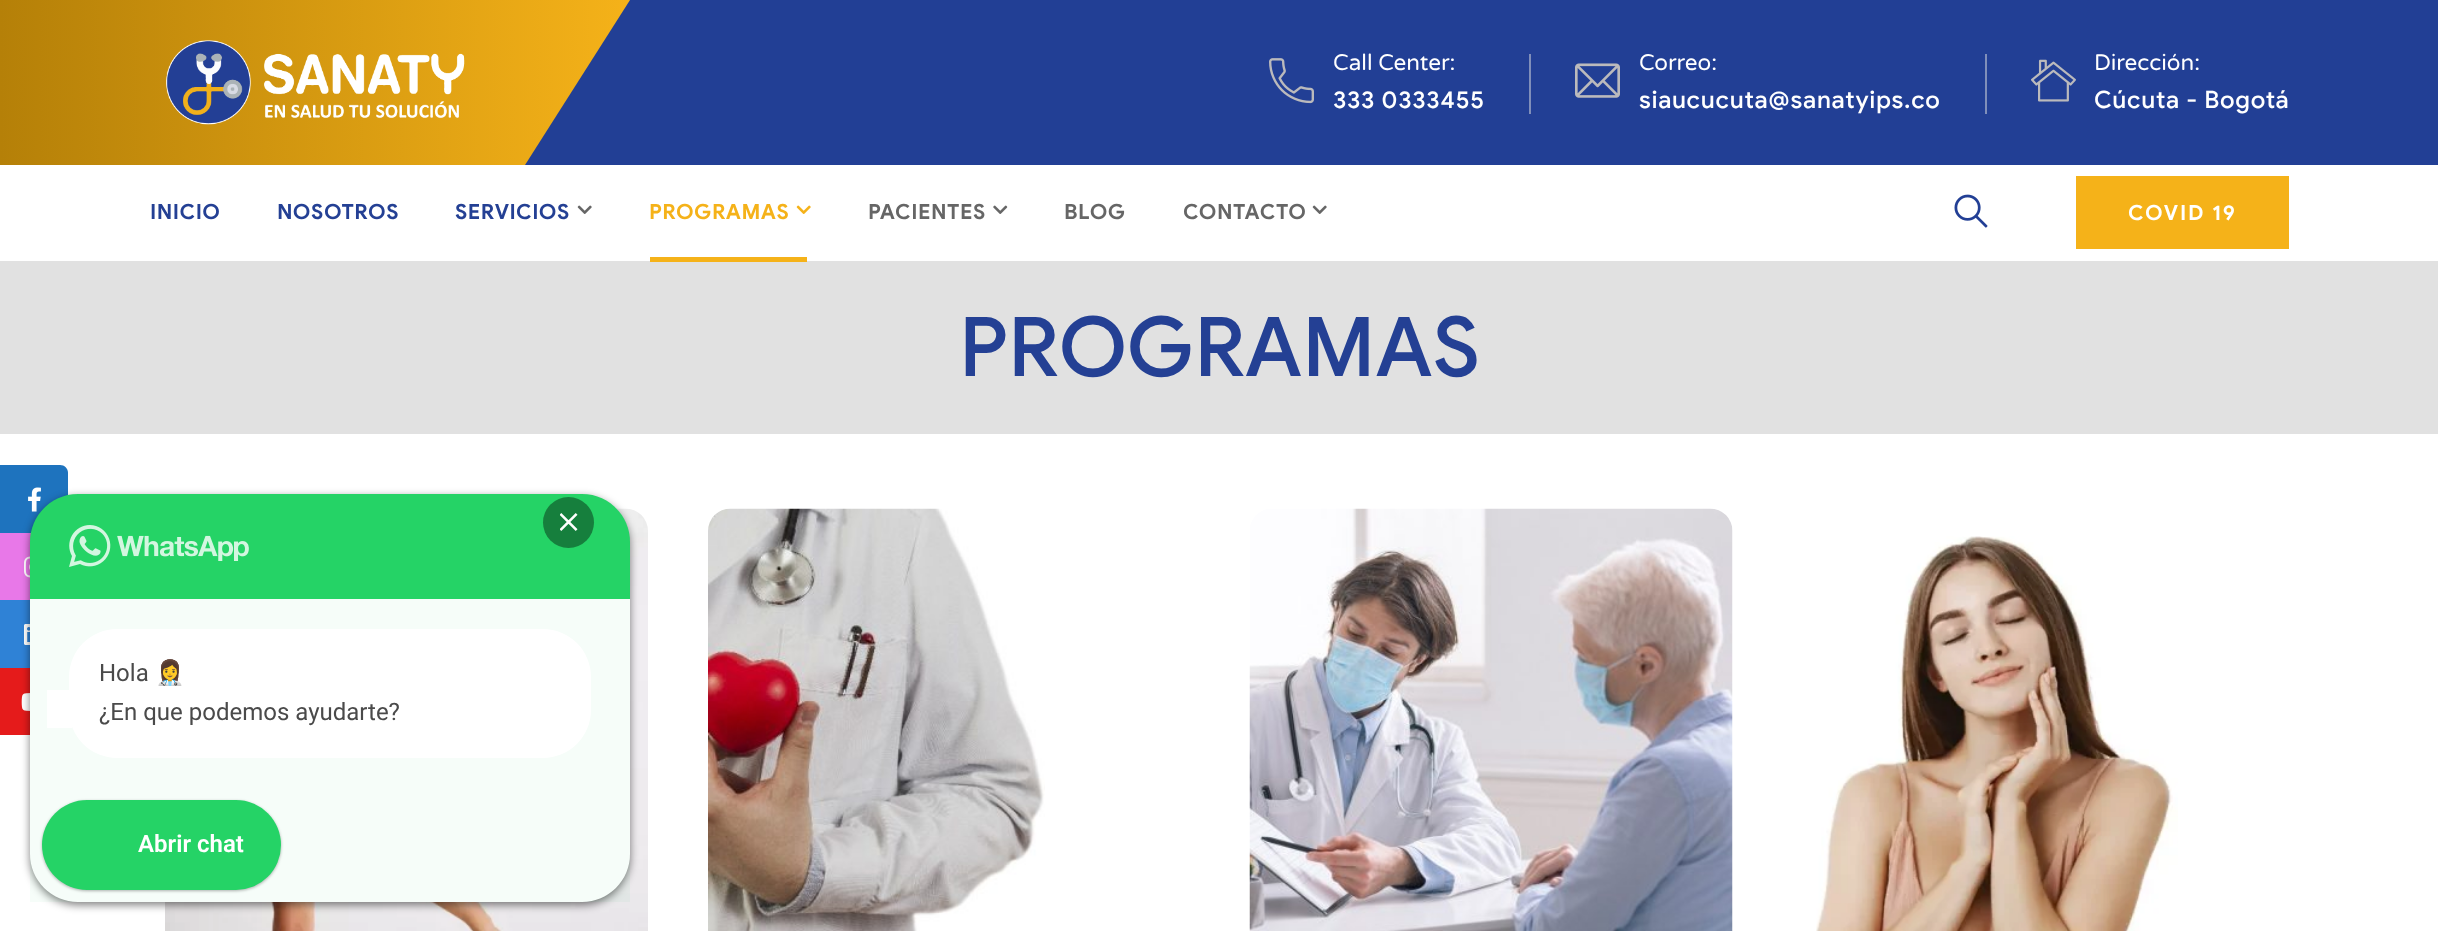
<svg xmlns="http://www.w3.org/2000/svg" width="2438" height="931">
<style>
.a{font:22.5px Varela Round;fill:#fff}
.b{font:500 24px Google Sans;letter-spacing:0.75px;fill:#fff}
.c{font:bold 21px Google Sans;letter-spacing:0.5px;fill:#244094}
.d{font:bold 21px Google Sans;letter-spacing:0.5px;fill:#f5b219}
.e{font:bold 21px Google Sans;letter-spacing:0.5px;fill:#666}
.f{font:bold 21px Google Sans;letter-spacing:1.75px;fill:#fff}
.g{font:500 82.5px Google Sans;fill:#244094}
.h{font:24px Roboto;fill:#4a4a4a}
.i{font:24px Noto Color Emoji;fill:#4a4a4a}
.j{font:600 24px Roboto;fill:#fff}
</style>
<defs>
<linearGradient id="g1" gradientUnits="userSpaceOnUse" x1="0" y1="83" x2="630" y2="82"><stop offset="0" stop-color="#b58008"/><stop offset="1" stop-color="#f5b219"/></linearGradient>
</defs>
<rect width="100%" height="100%" fill="#fff"/>
<path fill="#223f95" d="M525 0h1913v165H525z"/>
<path fill="url(#g1)" d="M0 0v165h525l105-165z"/>
<image href="1.png" x="166" y="40" width="299" height="85"/>
<image href="2.png" x="1269" y="58" width="45" height="46"/>
<path fill="#808fba" d="M1529 54h2v60H1529z"/>
<image href="3.png" x="1575" y="63" width="45" height="35"/>
<path fill="#808fba" d="M1985 54h2v60H1985z"/>
<image href="4.png" x="2031" y="59" width="45" height="43"/>
<image href="5.png" x="577" y="205" width="15" height="9"/>
<image href="6.png" x="796" y="205" width="15" height="9"/>
<path fill="#e1e1e1" d="M0 261h2438v173H0z"/>
<path fill="#f5b219" d="M650 257h157v5H650z"/>
<image href="7.png" x="993" y="205" width="15" height="9"/>
<image href="5.png" x="1312" y="205" width="15" height="9"/>
<image href="8.png" x="1954" y="194" width="34" height="34"/>
<path fill="#f5b219" d="M2076 176h213v73H2076z"/>
<image href="9.png" x="165" y="508" width="483" height="423"/>
<image href="10.png" x="708" y="508" width="337" height="423"/>
<image href="11.png" x="1249" y="508" width="484" height="423"/>
<image href="12.png" x="1816" y="536" width="362" height="395"/>
<path fill="#1e73be" d="M0 465h60c4.5 0 8 3.5 8 8v60h-68z"/>
<image href="13.png" x="28" y="487" width="13" height="25"/>
<path fill="#e878e8" d="M0 533h31v67H0z"/>
<image href="14.png" x="24" y="556" width="6" height="22"/>
<path fill="#2f82d6" d="M0 600h30v68H0z"/>
<image href="15.png" x="24" y="624" width="6" height="21"/>
<path fill="#e51b1b" d="M0 668h30v67H0z"/>
<image href="16.png" x="21" y="693" width="9" height="18"/>
<rect fill="#00000080" filter="blur(4.5px)" x="30" y="497" width="600" height="408" rx="48"/>
<path fill="#25d366" d="M78 494h504c26.5 0 48 21.5 48 48v57h-600v-57c0-26.5 21.5-48 48-48z"/>
<image href="17.png" x="69" y="525" width="180" height="42"/>
<circle fill="#167f3d" cx="568.5" cy="522.5" r="25.5"/>
<image href="18.png" x="560" y="513" width="18" height="18"/>
<path fill="#fff" d="M30 599h600v255c0 26.5-21.5 48-48 48h-504c-26.5 0-48-21.5-48-48z"/>
<path fill="#25d3660a" d="M30 599h600v303H30z"/>
<rect fill="#fff" x="69" y="629" width="522" height="129" rx="48"/>
<path fill="#fff" d="M47 690h25v38H47z"/>
<rect fill="#0000004d" filter="blur(1.5px)" x="42" y="801" width="239" height="90" rx="45"/>
<rect fill="#25d366" x="42" y="800" width="239" height="90" rx="45"/>
<text class="a" x="1333" y="70">Call Center:</text>
<text class="b" x="1333" y="108">333 0333455</text>
<text class="a" x="1639" y="70">Correo:</text>
<text class="b" x="1639" y="108">siaucucuta@sanatyips.co</text>
<text class="a" x="2094" y="70">Dirección:</text>
<text class="b" x="2094" y="108">Cúcuta - Bogotá</text>
<text class="c" x="150" y="219">INICIO</text>
<text class="c" x="277" y="219">NOSOTROS</text>
<text class="c" x="455" y="219">SERVICIOS</text>
<text class="d" x="649" y="219">PROGRAMAS</text>
<text class="e" x="868" y="219">PACIENTES</text>
<text class="e" x="1064" y="219">BLOG</text>
<text class="e" x="1183" y="219">CONTACTO</text>
<text class="f" x="2128" y="220">COVID 19</text>
<text class="g" x="959" y="376">PROGRAMAS</text>
<text class="h" x="99" y="681">Hola</text>
<text class="i" x="155" y="681">👩‍⚕️</text>
<text class="h" x="99" y="720">¿En que podemos ayudarte?</text>
<text class="j" x="138" y="852">Abrir chat</text>
</svg>
